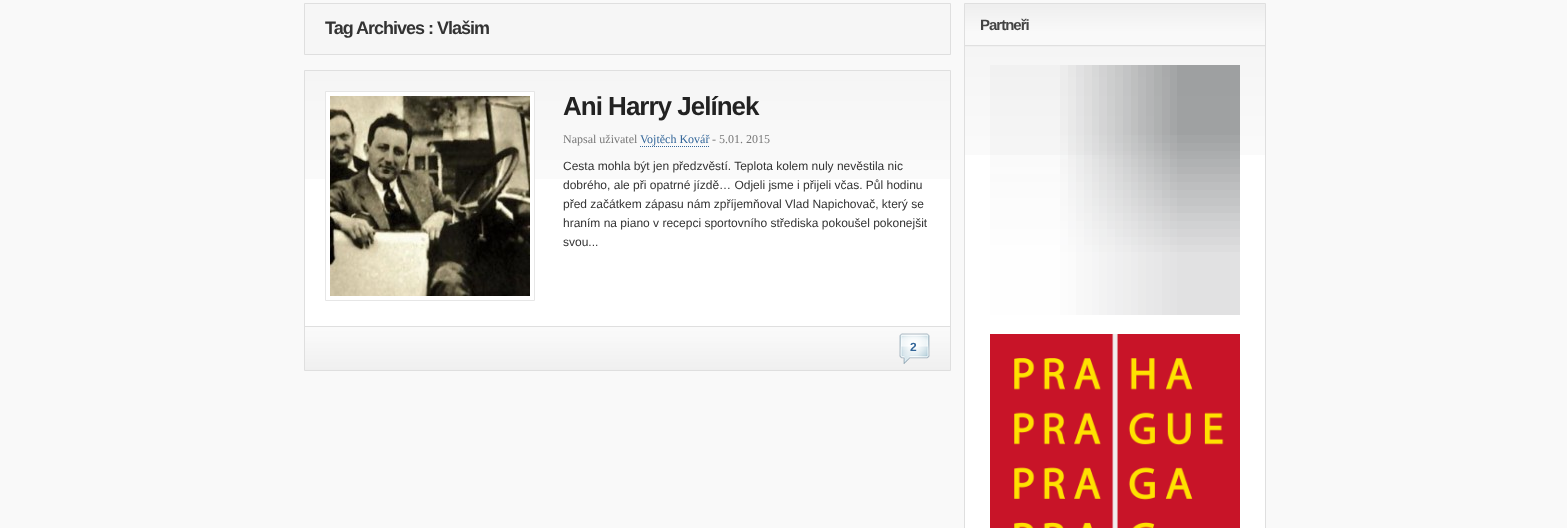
<svg xmlns="http://www.w3.org/2000/svg" width="1567" height="528">
<style>
.a{font:bold 18px Liberation Sans;letter-spacing:-1px;fill:#333}
.b{font:bold 26px Liberation Sans;letter-spacing:-1px;fill:#222}
.c{font:12px Liberation Serif;fill:#777}
.d{font:12px Liberation Serif;fill:#369}
.e{font:12px Liberation Sans;fill:#333}
.f{font:bold 12px Liberation Sans;fill:#369}
.g{font:bold 15px Liberation Sans;letter-spacing:-1px;fill:#444}
</style>
<rect width="100%" height="100%" fill="#f9f9f9"/>
<path fill="#f6f6f6" stroke="#dfdfdf" d="M304.5 3.5h646v51H304.5z"/>
<path fill="none" stroke="#dfdfdf" d="M304.5 70.5h646v300H304.5z"/>
<path fill="#fff" d="M305 179h645v147H305z"/>
<image href="1.png" x="305" y="71" width="645" height="108"/>
<path fill="#dfdfdf" d="M305 326h645v1H305z"/>
<path fill="#fff" d="M326 92h208v87H326z"/>
<path fill="none" stroke="#e6e6e6" d="M325.5 91.5h209v209H325.5z"/>
<image href="2.png" x="330" y="96" width="200" height="200"/>
<path fill="none" stroke="#369" stroke-dasharray="1 1" d="M640 146.5h69"/>
<image href="3.png" x="305" y="327" width="645" height="43"/>
<image href="4.png" x="899" y="333" width="31" height="31"/>
<path fill="#fff" d="M965 155h300v373H965z"/>
<path fill="none" stroke="#dfdfdf" d="M964.5 3.5h301v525H964.5z"/>
<image href="5.png" x="965" y="4" width="300" height="43"/>
<image href="6.png" x="965" y="47" width="300" height="108"/>
<image href="7.png" x="990" y="65" width="250" height="250"/>
<image href="8.png" x="990" y="334" width="250" height="194"/>
<text class="a" x="325" y="34">Tag Archives : Vlašim</text>
<text class="b" x="563" y="115">Ani Harry Jelínek</text>
<text class="c" x="563" y="143">Napsal uživatel</text>
<text class="d" x="640" y="143">Vojtěch Kovář</text>
<text class="c" x="712" y="143">- 5.01. 2015</text>
<text class="e" x="563" y="170">Cesta mohla být jen předzvěstí. Teplota kolem nuly nevěstila nic</text>
<text class="e" x="563" y="189">dobrého, ale při opatrné jízdě… Odjeli jsme i přijeli včas. Půl hodinu</text>
<text class="e" x="563" y="208">před začátkem zápasu nám zpříjemňoval Vlad Napichovač, který se</text>
<text class="e" x="563" y="227">hraním na piano v recepci sportovního střediska pokoušel pokonejšit</text>
<text class="e" x="563" y="246">svou...</text>
<text class="f" x="910" y="351">2</text>
<text class="g" x="980" y="30">Partneři</text>
</svg>
